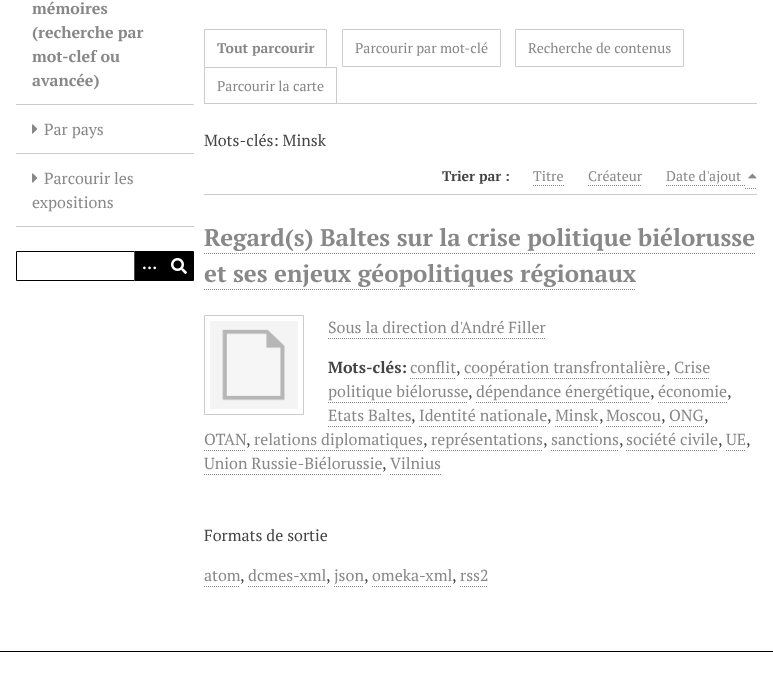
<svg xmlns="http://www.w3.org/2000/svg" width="773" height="700">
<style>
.a{font:bold 16px PT Serif;fill:#888}
.b{font:16px PT Serif;fill:#888}
.c{font:bold 16px PT Serif;fill:#fff}
.d{font:bold 14px PT Serif;fill:#888}
.e{font:14px PT Serif;fill:#888}
.f{font:16px PT Serif;fill:#444}
.g{font:bold 14px PT Serif;fill:#444}
.h{font:bold 24px PT Serif;fill:#888}
.i{font:bold 16px PT Serif;fill:#444}
</style>
<rect width="100%" height="100%" fill="#fff"/>
<path fill="#ccc" d="M16 104h178v1H16z"/>
<path fill="#ccc" d="M16 153h178v1H16z"/>
<image href="1.png" x="32" y="124" width="6" height="10"/>
<path fill="#ccc" d="M16 226h178v1H16z"/>
<image href="1.png" x="32" y="173" width="6" height="10"/>
<path fill="none" stroke="#000" d="M16.5 251.5h177v29H16.5z"/>
<path fill="#000" d="M135 252h58v28H135z"/>
<path fill="#4d4d4d" d="M134 251h1v30H134z"/>
<image href="2.png" x="171" y="258" width="16" height="16"/>
<path fill="#ccc" d="M204 103h553v1H204z"/>
<path fill="#ccc" d="M204 29h123v1H204z"/>
<path fill="#ccc" d="M326 29h1v38H326z"/>
<path fill="#fff" d="M326 66h1v1H326z"/>
<path fill="#ccc" d="M204 29h1v38H204z"/>
<path fill="none" stroke="#ccc" d="M342.5 29.5h158v37H342.5z"/>
<path fill="none" stroke="#ccc" d="M515.5 29.5h168v37H515.5z"/>
<path fill="#ccc" d="M204 67h133v1H204z"/>
<path fill="#ccc" d="M336 67h1v37H336z"/>
<path fill="#ccc" d="M204 67h1v37H204z"/>
<path fill="none" stroke="#888" stroke-dasharray="1 1" d="M533 185.5h31"/>
<path fill="none" stroke="#888" stroke-dasharray="1 1" d="M588 185.5h54"/>
<path fill="none" stroke="#888" stroke-dasharray="1 1" d="M666 185.5h79"/>
<path fill="none" stroke="#888" stroke-dasharray="1 1" d="M745 188.5h12"/>
<image href="3.png" x="748" y="173" width="9" height="6"/>
<path fill="#ccc" d="M204 194h553v1H204z"/>
<path fill="none" stroke="#888" stroke-dasharray="1 1" d="M204 253.5h551"/>
<path fill="none" stroke="#888" stroke-dasharray="1 1" d="M204 289.5h432"/>
<path fill="none" stroke="#ccc" d="M204.5 315.5h99v99H204.5z"/>
<image href="4.png" x="210" y="321" width="88" height="88"/>
<path fill="none" stroke="#888" stroke-dasharray="1 1" d="M328 338.5h217"/>
<path fill="none" stroke="#888" stroke-dasharray="1 1" d="M410 378.5h46"/>
<path fill="none" stroke="#888" stroke-dasharray="1 1" d="M464 378.5h202"/>
<path fill="none" stroke="#888" stroke-dasharray="1 1" d="M674 378.5h36"/>
<path fill="none" stroke="#888" stroke-dasharray="1 1" d="M328 402.5h140"/>
<path fill="none" stroke="#888" stroke-dasharray="1 1" d="M476 402.5h174"/>
<path fill="none" stroke="#888" stroke-dasharray="1 1" d="M658 402.5h69"/>
<path fill="none" stroke="#888" stroke-dasharray="1 1" d="M328 426.5h83"/>
<path fill="none" stroke="#888" stroke-dasharray="1 1" d="M419 426.5h128"/>
<path fill="none" stroke="#888" stroke-dasharray="1 1" d="M555 426.5h44"/>
<path fill="none" stroke="#888" stroke-dasharray="1 1" d="M606 426.5h55"/>
<path fill="none" stroke="#888" stroke-dasharray="1 1" d="M669 426.5h35"/>
<path fill="none" stroke="#888" stroke-dasharray="1 1" d="M204 450.5h42"/>
<path fill="none" stroke="#888" stroke-dasharray="1 1" d="M254 450.5h169"/>
<path fill="none" stroke="#888" stroke-dasharray="1 1" d="M431 450.5h112"/>
<path fill="none" stroke="#888" stroke-dasharray="1 1" d="M551 450.5h68"/>
<path fill="none" stroke="#888" stroke-dasharray="1 1" d="M626 450.5h92"/>
<path fill="none" stroke="#888" stroke-dasharray="1 1" d="M726 450.5h20"/>
<path fill="none" stroke="#888" stroke-dasharray="1 1" d="M204 474.5h178"/>
<path fill="none" stroke="#888" stroke-dasharray="1 1" d="M390 474.5h51"/>
<path fill="none" stroke="#888" stroke-dasharray="1 1" d="M204 586.5h36"/>
<path fill="none" stroke="#888" stroke-dasharray="1 1" d="M248 586.5h78"/>
<path fill="none" stroke="#888" stroke-dasharray="1 1" d="M334 586.5h30"/>
<path fill="none" stroke="#888" stroke-dasharray="1 1" d="M372 586.5h80"/>
<path fill="none" stroke="#888" stroke-dasharray="1 1" d="M460 586.5h28"/>
<path fill="#000" d="M0 651h773v1H0z"/>
<text class="a" x="32" y="14">mémoires</text>
<text class="a" x="32" y="38">(recherche par</text>
<text class="a" x="32" y="62">mot-clef ou</text>
<text class="a" x="32" y="86">avancée)</text>
<text class="b" x="44" y="135">Par pays</text>
<text class="b" x="44" y="184">Parcourir les</text>
<text class="b" x="32" y="208">expositions</text>
<text class="c" x="142" y="269">…</text>
<text class="d" x="217" y="53">Tout parcourir</text>
<text class="e" x="355" y="53">Parcourir par mot-clé</text>
<text class="e" x="528" y="53">Recherche de contenus</text>
<text class="e" x="217" y="91">Parcourir la carte</text>
<text class="f" x="204" y="146">Mots-clés: Minsk</text>
<text class="g" x="442" y="181">Trier par :</text>
<text class="e" x="533" y="181">Titre</text>
<text class="e" x="588" y="181">Créateur</text>
<text class="e" x="666" y="181">Date d'ajout</text>
<text class="h" x="204" y="246">Regard(s) Baltes sur la crise politique biélorusse</text>
<text class="h" x="204" y="282">et ses enjeux géopolitiques régionaux</text>
<text class="b" x="328" y="333">Sous la direction d'André Filler</text>
<text class="i" x="328" y="373">Mots-clés:</text>
<text class="b" x="410" y="373">conflit</text>
<text class="f" x="456" y="373">,</text>
<text class="b" x="464" y="373">coopération transfrontalière</text>
<text class="f" x="666" y="373">,</text>
<text class="b" x="674" y="373">Crise</text>
<text class="b" x="328" y="397">politique biélorusse</text>
<text class="f" x="468" y="397">,</text>
<text class="b" x="476" y="397">dépendance énergétique</text>
<text class="f" x="650" y="397">,</text>
<text class="b" x="658" y="397">économie</text>
<text class="f" x="727" y="397">,</text>
<text class="b" x="328" y="421">Etats Baltes</text>
<text class="f" x="411" y="421">,</text>
<text class="b" x="419" y="421">Identité nationale</text>
<text class="f" x="547" y="421">,</text>
<text class="b" x="555" y="421">Minsk</text>
<text class="f" x="599" y="421">,</text>
<text class="b" x="606" y="421">Moscou</text>
<text class="f" x="661" y="421">,</text>
<text class="b" x="669" y="421">ONG</text>
<text class="f" x="704" y="421">,</text>
<text class="b" x="204" y="445">OTAN</text>
<text class="f" x="246" y="445">,</text>
<text class="b" x="254" y="445">relations diplomatiques</text>
<text class="f" x="423" y="445">,</text>
<text class="b" x="431" y="445">représentations</text>
<text class="f" x="543" y="445">,</text>
<text class="b" x="551" y="445">sanctions</text>
<text class="f" x="619" y="445">,</text>
<text class="b" x="626" y="445">société civile</text>
<text class="f" x="718" y="445">,</text>
<text class="b" x="726" y="445">UE</text>
<text class="f" x="746" y="445">,</text>
<text class="b" x="204" y="469">Union Russie-Biélorussie</text>
<text class="f" x="382" y="469">,</text>
<text class="b" x="390" y="469">Vilnius</text>
<text class="f" x="204" y="541">Formats de sortie</text>
<text class="b" x="204" y="581">atom</text>
<text class="f" x="240" y="581">,</text>
<text class="b" x="248" y="581">dcmes-xml</text>
<text class="f" x="326" y="581">,</text>
<text class="b" x="334" y="581">json</text>
<text class="f" x="364" y="581">,</text>
<text class="b" x="372" y="581">omeka-xml</text>
<text class="f" x="452" y="581">,</text>
<text class="b" x="460" y="581">rss2</text>
</svg>
